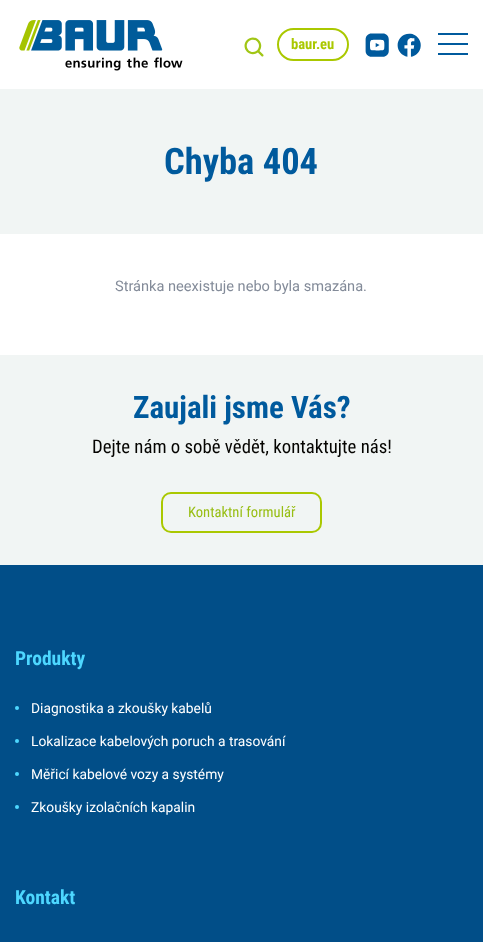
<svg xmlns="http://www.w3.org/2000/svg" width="483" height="942">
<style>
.a{font:bold 14.6px Roboto Condensed;fill:#aac800}
.b{font:bold 36.5px Roboto Condensed;fill:#005a9d}
.c{font:14.6px Roboto;fill:#838b99}
.d{font:bold 31px Roboto Condensed;fill:#005a9d}
.e{font:18.75px Roboto Condensed;fill:#050401}
.f{font:14.6px Roboto Condensed;fill:#98be14}
.g{font:bold 19.5px Roboto Condensed;fill:#4dd7ff}
.h{font:13.8px Roboto;fill:#fff}
</style>
<rect width="100%" height="100%" fill="#fff"/>
<image href="1.png" x="19" y="20" width="164" height="51"/>
<image href="2.png" x="244" y="37" width="20" height="20"/>
<rect fill="none" stroke="#aac800" stroke-width="2" x="278" y="29" width="70" height="31" rx="15.5"/>
<image href="3.png" x="365" y="33" width="24" height="24"/>
<image href="4.png" x="397" y="33" width="24" height="24"/>
<path fill="#005a9d" d="M438 33h30v2H438z"/>
<path fill="#005a9d" d="M438 43h30v2H438z"/>
<path fill="#005a9d" d="M438 53h30v2H438z"/>
<path fill="#f1f5f4" d="M0 89h483v145H0z"/>
<path fill="#f1f5f4" d="M0 355h483v210H0z"/>
<rect fill="none" stroke="#aac800" stroke-width="2" x="162" y="493" width="159" height="39" rx="9"/>
<path fill="#014e88" d="M0 565h483v377H0z"/>
<circle fill="#4dd7ff" cx="17" cy="708" r="2"/>
<circle fill="#4dd7ff" cx="17" cy="741" r="2"/>
<circle fill="#4dd7ff" cx="17" cy="774" r="2"/>
<circle fill="#4dd7ff" cx="17" cy="807" r="2"/>
<text class="a" x="291" y="49">baur.eu</text>
<text class="b" x="164" y="174">Chyba 404</text>
<text class="c" x="115" y="291">Stránka neexistuje nebo byla smazána.</text>
<text class="d" x="133" y="418">Zaujali jsme Vás?</text>
<text class="e" x="92" y="453">Dejte nám o sobě vědět, kontaktujte nás!</text>
<text class="f" x="188" y="517">Kontaktní formulář</text>
<text class="g" x="15" y="665">Produkty</text>
<text class="h" x="31" y="713">Diagnostika a zkoušky kabelů</text>
<text class="h" x="31" y="746">Lokalizace kabelových poruch a trasování</text>
<text class="h" x="31" y="779">Měřicí kabelové vozy a systémy</text>
<text class="h" x="31" y="812">Zkoušky izolačních kapalin</text>
<text class="g" x="15" y="904">Kontakt</text>
</svg>
